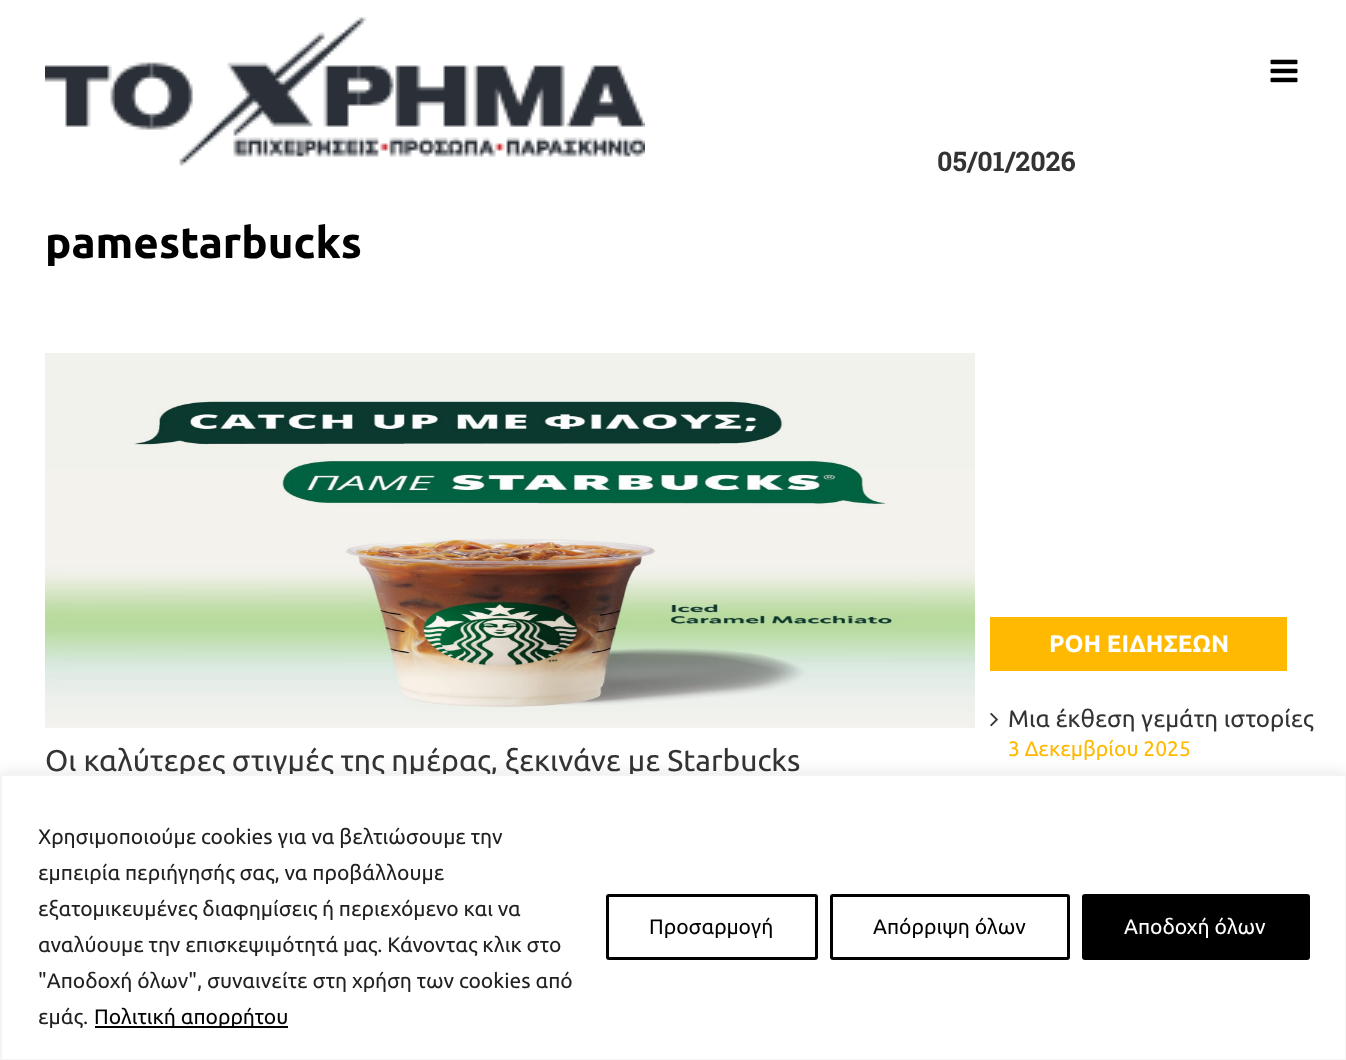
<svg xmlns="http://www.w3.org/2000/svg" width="1346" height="1060">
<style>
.a{font:bold 27px Roboto Slab;fill:#333}
.b{font:bold 43.75px Ubuntu;fill:#000}
.c{font:30px Ubuntu;fill:#333}
.d{font:bold 24px Ubuntu;fill:#fff}
.e{font:24px Ubuntu;fill:#333}
.f{font:21px Ubuntu;fill:#ffb901}
.g{font:21px Ubuntu;fill:#212121}
.h{font:21px Ubuntu;fill:#000}
.i{font:21px Ubuntu;fill:#fff}
</style>
<rect width="100%" height="100%" fill="#fff"/>
<image href="1.png" x="1270" y="59" width="28" height="24"/>
<image href="2.png" x="45" y="17" width="600" height="149"/>
<image href="3.png" x="45" y="353" width="930" height="375"/>
<path fill="#ffb901" d="M990 617h297v54H990z"/>
<image href="4.png" x="990" y="712" width="8" height="15"/>
<path fill="#acabab4d" filter="blur(7.5px)" d="M0 773h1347v286H0z"/>
<text class="a" x="937" y="171">05/01/2026</text>
<text class="b" x="45" y="258">pamestarbucks</text>
<text class="c" x="45" y="771">Οι καλύτερες στιγμές της ημέρας, ξεκινάνε με Starbucks</text>
<text class="d" x="1049" y="652">ΡΟΗ ΕΙΔΗΣΕΩΝ</text>
<text class="e" x="1008" y="727">Μια έκθεση γεμάτη ιστορίες</text>
<text class="f" x="1008" y="756">3 Δεκεμβρίου 2025</text>
<path fill="#fff" stroke="#f4f4f4" stroke-width="2" d="M1 775h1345v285H1z"/>
<text class="g" x="38" y="844">Χρησιμοποιούμε cookies για να βελτιώσουμε την</text>
<text class="g" x="38" y="880">εμπειρία περιήγησής σας, να προβάλλουμε</text>
<text class="g" x="38" y="916">εξατομικευμένες διαφημίσεις ή περιεχόμενο και να</text>
<text class="g" x="38" y="952">αναλύουμε την επισκεψιμότητά μας. Κάνοντας κλικ στο</text>
<text class="g" x="38" y="988">"Αποδοχή όλων", συναινείτε στη χρήση των cookies από</text>
<text class="g" x="38" y="1024">εμάς.</text>
<path fill="#000" d="M95 1026h193v2H95z"/>
<text class="h" x="94" y="1024">Πολιτική απορρήτου</text>
<rect fill="none" stroke="#000" stroke-width="3" x="607.5" y="895.5" width="209" height="63" rx="1.5"/>
<text class="h" x="649" y="934">Προσαρμογή</text>
<rect fill="none" stroke="#000" stroke-width="3" x="831.5" y="895.5" width="237" height="63" rx="1.5"/>
<text class="h" x="873" y="934">Απόρριψη όλων</text>
<rect fill="#000" stroke="#000" stroke-width="3" x="1083.5" y="895.5" width="225" height="63" rx="1.5"/>
<text class="i" x="1124" y="934">Αποδοχή όλων</text>
</svg>
